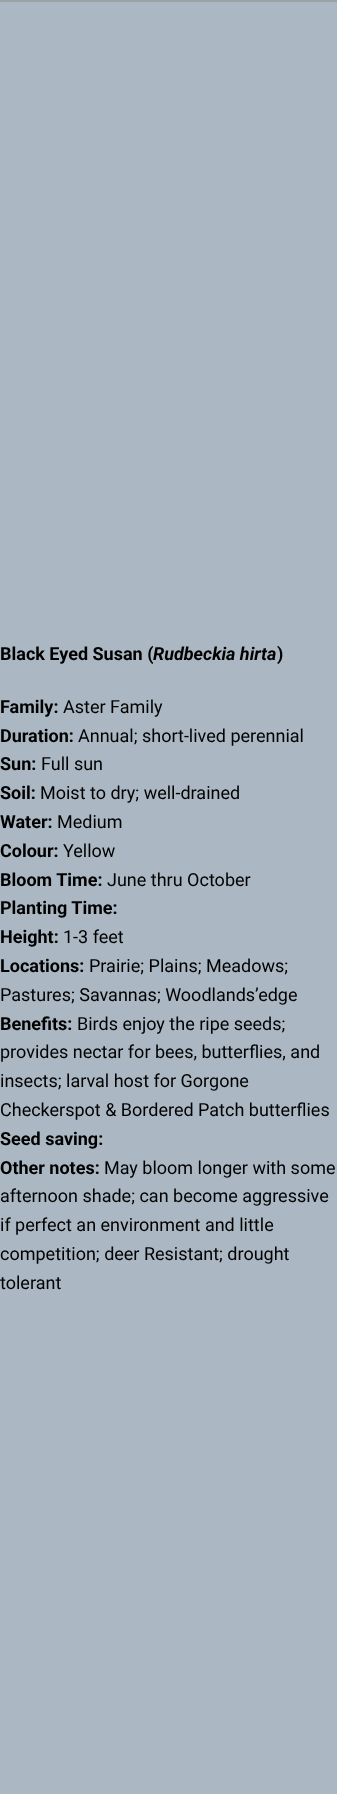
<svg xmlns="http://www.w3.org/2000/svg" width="337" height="1794">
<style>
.a{font:bold 18px Roboto;fill:#000}
.b{font:italic bold 18px Roboto;fill:#000}
.c{font:18px Roboto;fill:#000}
</style>
<rect width="100%" height="100%" fill="#abb8c3"/>
<path fill="#9aa2a8" d="M0 0h337v2H0z"/>
<text class="a" x="0" y="660">Black Eyed Susan (</text>
<text class="b" x="153" y="660">Rudbeckia hirta</text>
<text class="a" x="277" y="660">)</text>
<text class="a" x="0" y="713">Family:</text>
<text class="c" x="63" y="713">Aster Family</text>
<text class="a" x="0" y="742">Duration:</text>
<text class="c" x="78" y="742">Annual; short-lived perennial</text>
<text class="a" x="0" y="770">Sun:</text>
<text class="c" x="41" y="770">Full sun</text>
<text class="a" x="0" y="799">Soil:</text>
<text class="c" x="40" y="799">Moist to dry; well-drained</text>
<text class="a" x="0" y="828">Water:</text>
<text class="c" x="57" y="828">Medium</text>
<text class="a" x="0" y="857">Colour:</text>
<text class="c" x="63" y="857">Yellow</text>
<text class="a" x="0" y="886">Bloom Time:</text>
<text class="c" x="107" y="886">June thru October</text>
<text class="a" x="0" y="914">Planting Time:</text>
<text class="a" x="0" y="943">Height:</text>
<text class="c" x="63" y="943">1-3 feet</text>
<text class="a" x="0" y="972">Locations:</text>
<text class="c" x="89" y="972">Prairie; Plains; Meadows;</text>
<text class="c" x="0" y="1001">Pastures; Savannas; Woodlands’edge</text>
<text class="a" x="0" y="1030">Benefits:</text>
<text class="c" x="77" y="1030">Birds enjoy the ripe seeds;</text>
<text class="c" x="0" y="1058">provides nectar for bees, butterflies, and</text>
<text class="c" x="0" y="1087">insects; larval host for Gorgone</text>
<text class="c" x="0" y="1116">Checkerspot &amp; Bordered Patch butterflies</text>
<text class="a" x="0" y="1145">Seed saving:</text>
<text class="a" x="0" y="1174">Other notes:</text>
<text class="c" x="104" y="1174">May bloom longer with some</text>
<text class="c" x="0" y="1202">afternoon shade; can become aggressive</text>
<text class="c" x="0" y="1231">if perfect an environment and little</text>
<text class="c" x="0" y="1260">competition; deer Resistant; drought</text>
<text class="c" x="0" y="1289">tolerant</text>
</svg>
